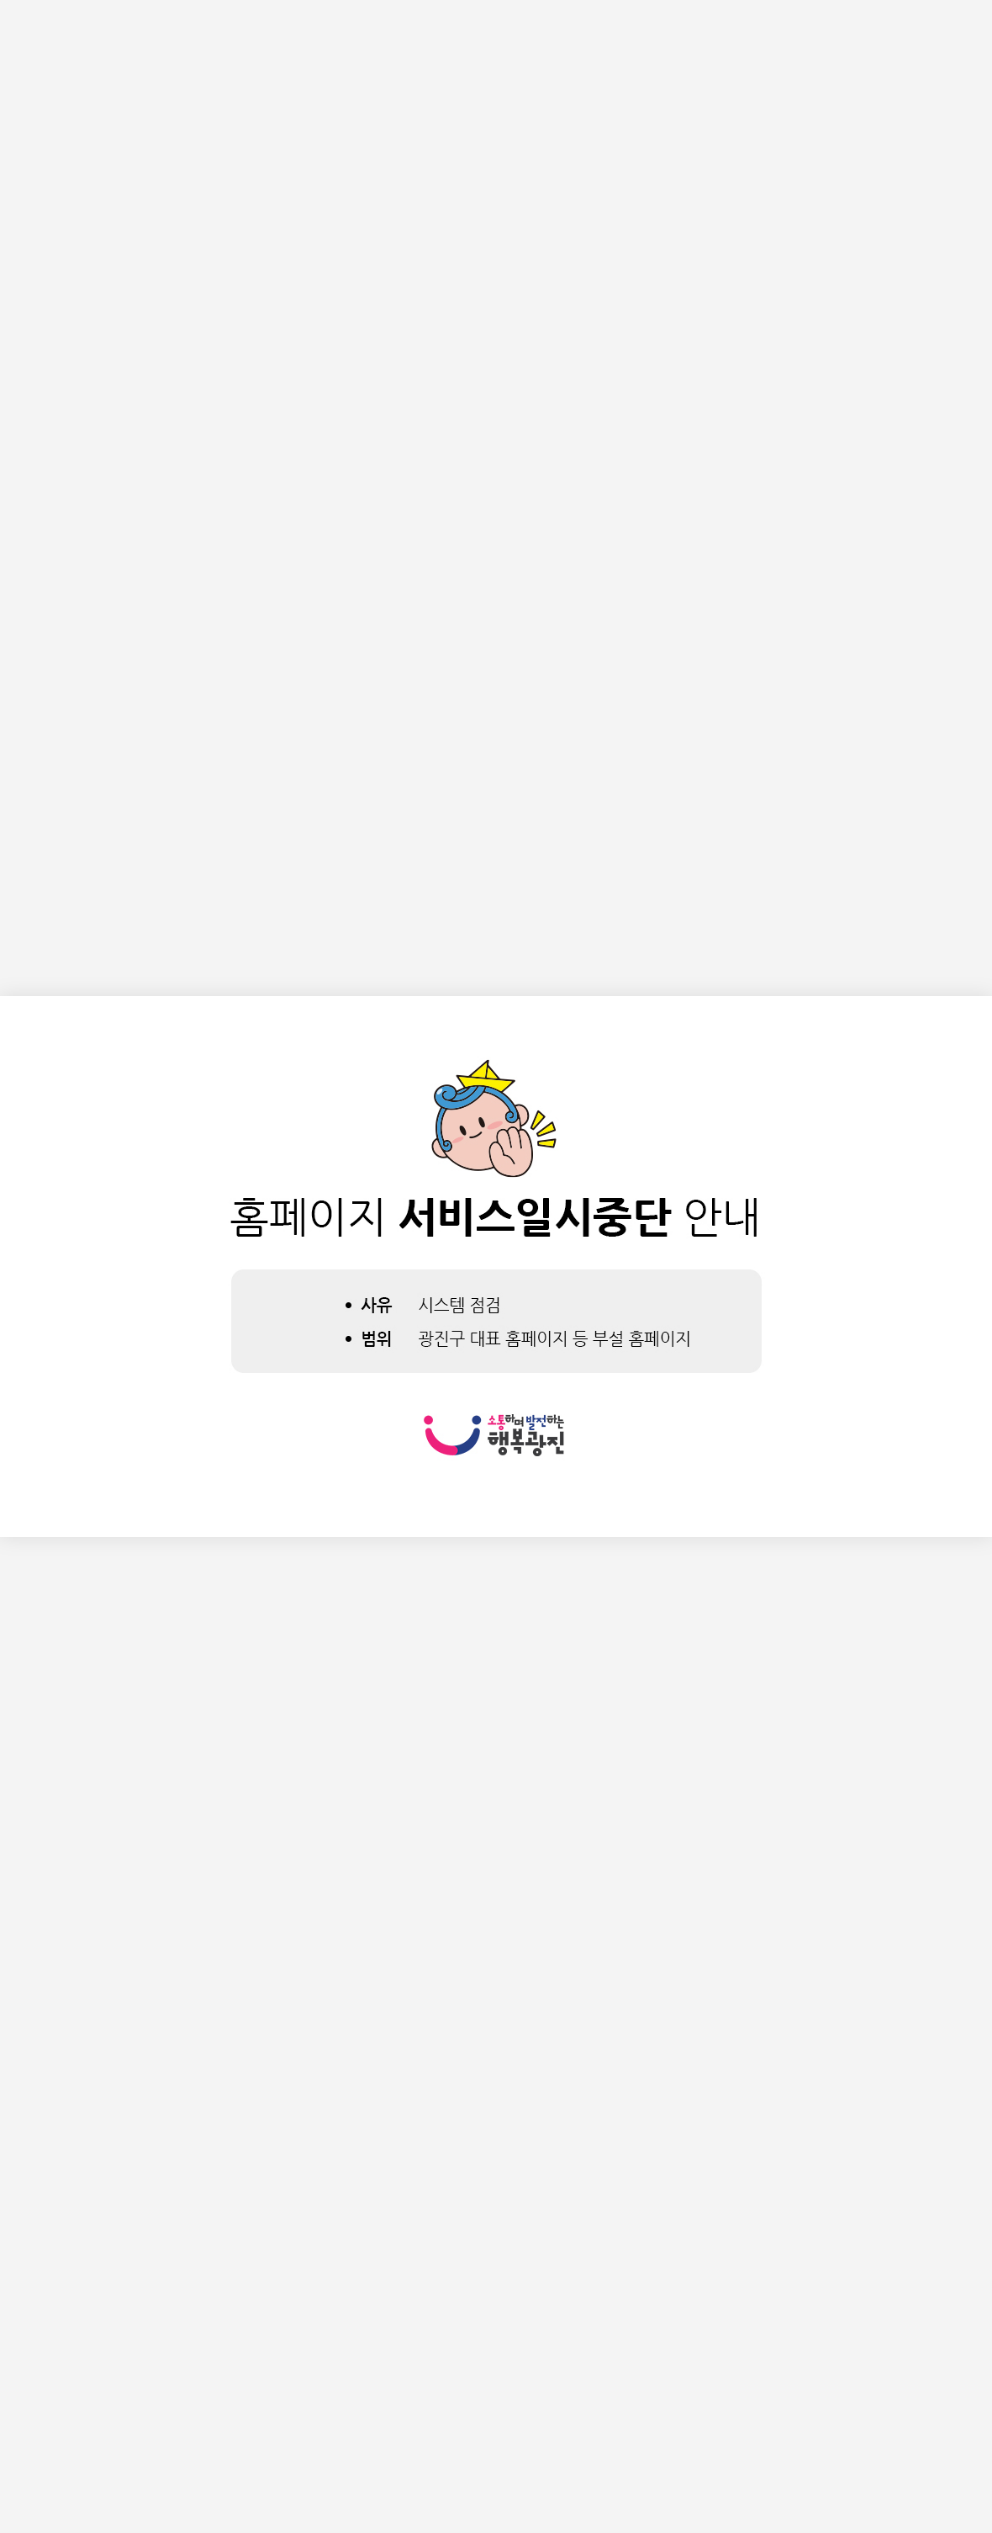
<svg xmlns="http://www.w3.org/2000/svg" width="992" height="2533">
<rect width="100%" height="100%" fill="#f4f4f4"/>
<path fill="#0000001a" filter="blur(10px)" d="M0 996h992v541H0z"/>
<image href="1.png" x="0" y="996" width="992" height="541"/>
</svg>
